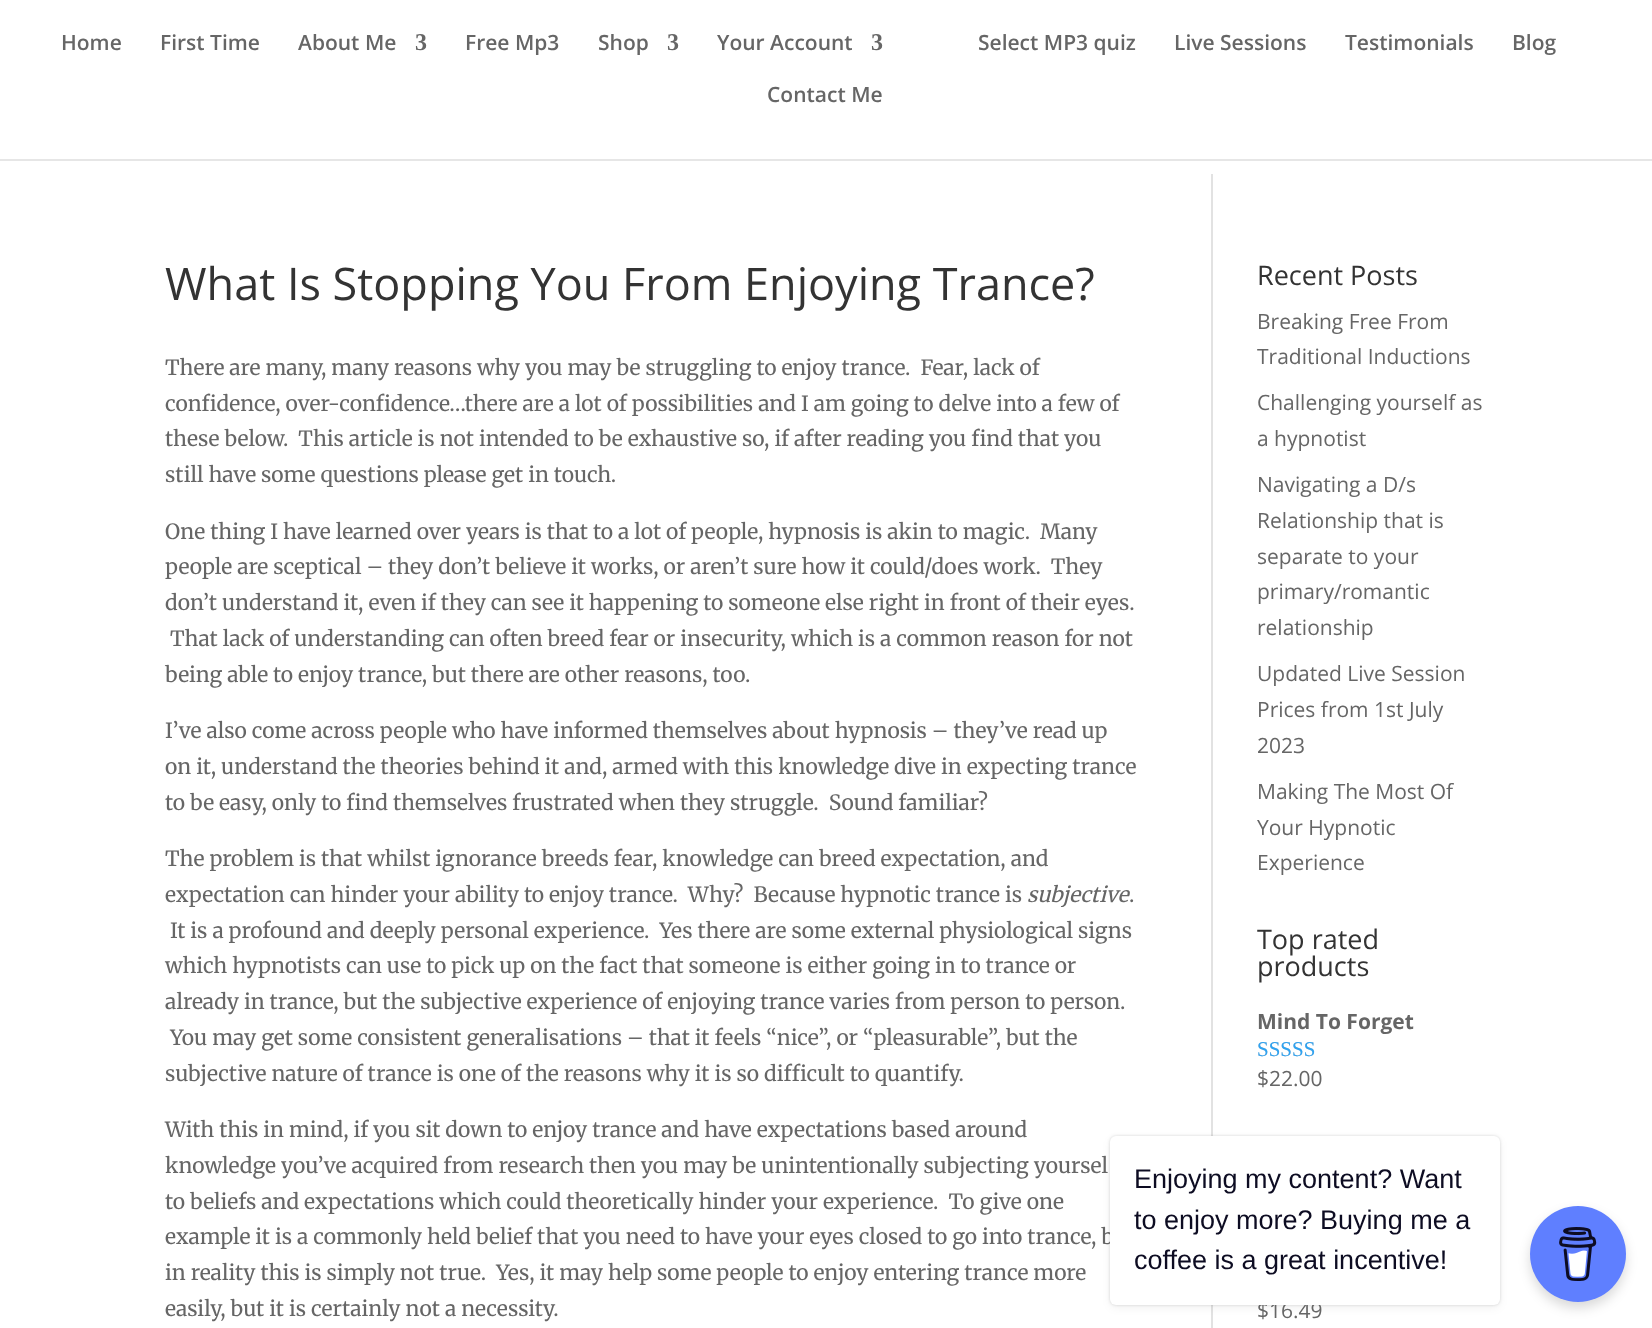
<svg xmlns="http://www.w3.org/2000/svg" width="1652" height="1328">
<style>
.a{font:600 21px Open Sans;fill:#666}
.b{font:bold 24px Liberation Serif;fill:#666}
.c{font:45px Open Sans;fill:#333}
.d{font:300 21px Merriweather;fill:#666}
.e{font:italic 300 21px Merriweather;fill:#666}
.f{font:27px Open Sans;fill:#333}
.g{font:21px Open Sans;fill:#666}
.h{font:bold 21px Open Sans;fill:#666}
.i{font:21px Liberation Serif;fill:#ccc}
.j{font:21px Liberation Serif;fill:#2ea3f2}
.k{font:27px Liberation Sans;fill:#0d0c22}
</style>
<rect width="100%" height="100%" fill="#fff"/>
<path fill="#e6e6e6" d="M0 159h1652v2H0z"/>
<path fill="#e2e2e2" d="M1211 174h2v1154H1211z"/>
<rect fill="#00000026" filter="blur(1.5px)" x="1110" y="1136" width="390" height="169" rx="6"/>
<rect fill="#0000000d" filter="blur(4px)" x="1110" y="1139" width="390" height="169" rx="6"/>
<rect fill="#00000026" filter="blur(6px)" x="1530" y="1212" width="96" height="96" rx="48"/>
<circle fill="#5f7fff" cx="1578" cy="1254" r="48"/>
<image href="1.png" x="1559" y="1227" width="38" height="54"/>
<text class="a" x="61" y="50">Home</text>
<text class="a" x="160" y="50">First Time</text>
<text class="a" x="298" y="50">About Me</text>
<text class="b" x="415" y="50">3</text>
<text class="a" x="465" y="50">Free Mp3</text>
<text class="a" x="598" y="50">Shop</text>
<text class="b" x="667" y="50">3</text>
<text class="a" x="717" y="50">Your Account</text>
<text class="b" x="871" y="50">3</text>
<text class="a" x="978" y="50">Select MP3 quiz</text>
<text class="a" x="1174" y="50">Live Sessions</text>
<text class="a" x="1345" y="50">Testimonials</text>
<text class="a" x="1512" y="50">Blog</text>
<text class="a" x="767" y="102">Contact Me</text>
<text class="c" x="165" y="300">What Is Stopping You From Enjoying Trance?</text>
<text class="d" xml:space="preserve" x="165" y="375">There are many, many reasons why you may be struggling to enjoy trance.  Fear, lack of</text>
<text class="d" x="165" y="411">confidence, over-confidence…there are a lot of possibilities and I am going to delve into a few of</text>
<text class="d" xml:space="preserve" x="165" y="446">these below.  This article is not intended to be exhaustive so, if after reading you find that you</text>
<text class="d" x="165" y="482">still have some questions please get in touch.</text>
<text class="d" xml:space="preserve" x="165" y="539">One thing I have learned over years is that to a lot of people, hypnosis is akin to magic.  Many</text>
<text class="d" xml:space="preserve" x="165" y="574">people are sceptical – they don’t believe it works, or aren’t sure how it could/does work.  They</text>
<text class="d" x="165" y="610">don’t understand it, even if they can see it happening to someone else right in front of their eyes.</text>
<text class="d" x="170" y="646">That lack of understanding can often breed fear or insecurity, which is a common reason for not</text>
<text class="d" x="165" y="682">being able to enjoy trance, but there are other reasons, too.</text>
<text class="d" x="165" y="738">I’ve also come across people who have informed themselves about hypnosis – they’ve read up</text>
<text class="d" x="165" y="774">on it, understand the theories behind it and, armed with this knowledge dive in expecting trance</text>
<text class="d" xml:space="preserve" x="165" y="810">to be easy, only to find themselves frustrated when they struggle.  Sound familiar?</text>
<text class="d" x="165" y="866">The problem is that whilst ignorance breeds fear, knowledge can breed expectation, and</text>
<text class="d" xml:space="preserve" x="165" y="902">expectation can hinder your ability to enjoy trance.  Why?  Because hypnotic trance is</text>
<text class="e" x="1027" y="902">subjective</text>
<text class="d" x="1129" y="902">.</text>
<text class="d" xml:space="preserve" x="170" y="938">It is a profound and deeply personal experience.  Yes there are some external physiological signs</text>
<text class="d" x="165" y="973">which hypnotists can use to pick up on the fact that someone is either going in to trance or</text>
<text class="d" x="165" y="1009">already in trance, but the subjective experience of enjoying trance varies from person to person.</text>
<text class="d" x="170" y="1045">You may get some consistent generalisations – that it feels “nice”, or “pleasurable”, but the</text>
<text class="d" x="165" y="1081">subjective nature of trance is one of the reasons why it is so difficult to quantify.</text>
<text class="d" x="165" y="1137">With this in mind, if you sit down to enjoy trance and have expectations based around</text>
<text class="d" x="165" y="1173">knowledge you’ve acquired from research then you may be unintentionally subjecting yoursel</text>
<text class="d" xml:space="preserve" x="165" y="1209">to beliefs and expectations which could theoretically hinder your experience.  To give one</text>
<text class="d" x="165" y="1244">example it is a commonly held belief that you need to have your eyes closed to go into trance, b</text>
<text class="d" xml:space="preserve" x="165" y="1280">in reality this is simply not true.  Yes, it may help some people to enjoy entering trance more</text>
<text class="d" x="165" y="1316">easily, but it is certainly not a necessity.</text>
<text class="f" x="1257" y="285">Recent Posts</text>
<text class="g" x="1257" y="329">Breaking Free From</text>
<text class="g" x="1257" y="364">Traditional Inductions</text>
<text class="g" x="1257" y="410">Challenging yourself as</text>
<text class="g" x="1257" y="446">a hypnotist</text>
<text class="g" x="1257" y="492">Navigating a D/s</text>
<text class="g" x="1257" y="528">Relationship that is</text>
<text class="g" x="1257" y="564">separate to your</text>
<text class="g" x="1257" y="599">primary/romantic</text>
<text class="g" x="1257" y="635">relationship</text>
<text class="g" x="1257" y="681">Updated Live Session</text>
<text class="g" x="1257" y="717">Prices from 1st July</text>
<text class="g" x="1257" y="753">2023</text>
<text class="g" x="1257" y="799">Making The Most Of</text>
<text class="g" x="1257" y="835">Your Hypnotic</text>
<text class="g" x="1257" y="870">Experience</text>
<text class="f" x="1257" y="949">Top rated</text>
<text class="f" x="1257" y="976">products</text>
<text class="h" x="1257" y="1029">Mind To Forget</text>
<text class="i" x="1257" y="1056">SSSSS</text>
<text class="j" x="1257" y="1056">SSSSS</text>
<text class="g" x="1257" y="1086">$22.00</text>
<text class="g" x="1257" y="1318">$16.49</text>
<rect fill="#fff" x="1110" y="1136" width="390" height="169" rx="6"/>
<text class="k" x="1134" y="1188">Enjoying my content? Want</text>
<text class="k" x="1134" y="1229">to enjoy more? Buying me a</text>
<text class="k" x="1134" y="1269">coffee is a great incentive!</text>
</svg>
